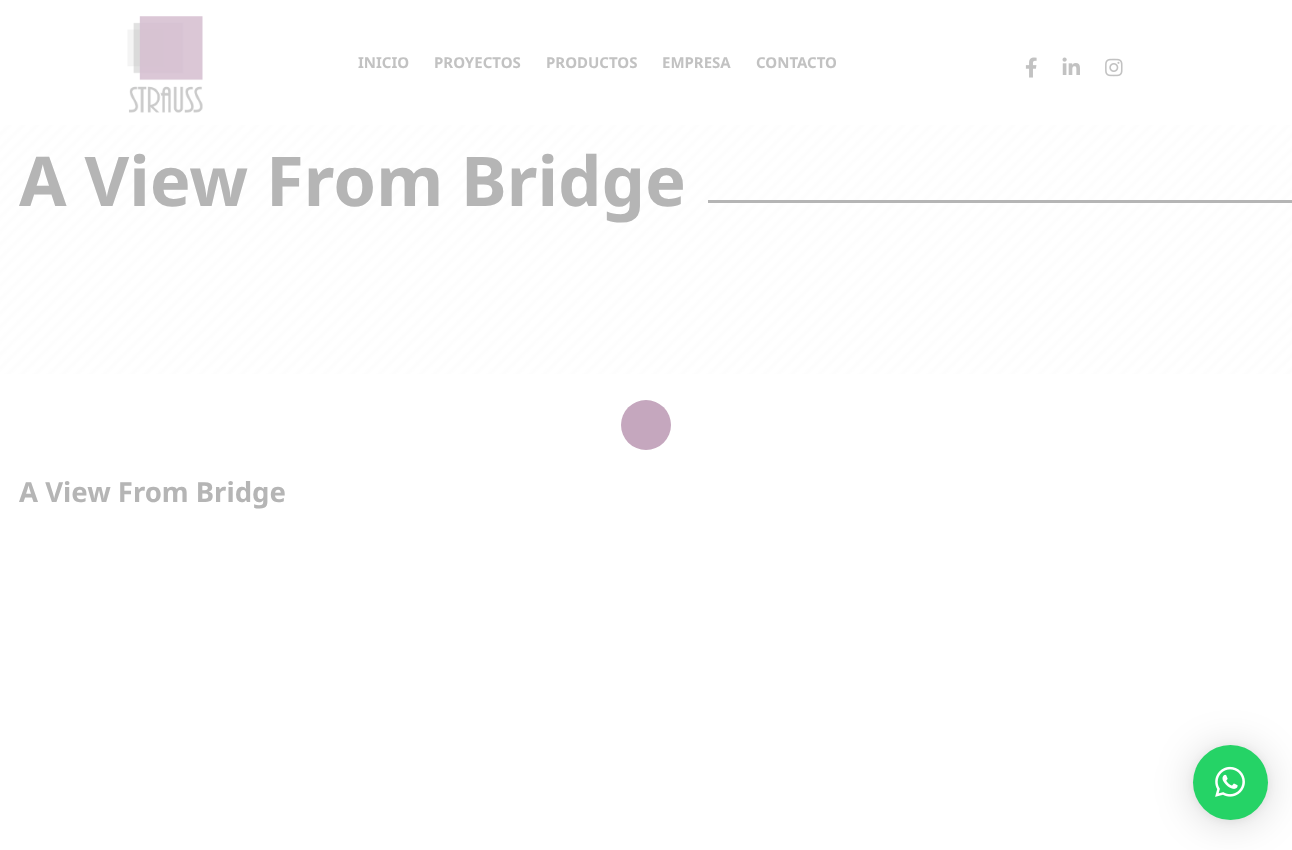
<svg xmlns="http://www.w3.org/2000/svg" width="1292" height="850">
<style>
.a{font:bold 15px Noto Sans;fill:#c2c2c2}
.b{font:bold 68.75px Noto Sans;fill:#b5b5b5}
.c{font:bold 27.5px Noto Sans;fill:#b5b5b5}
</style>
<rect width="100%" height="100%" fill="#fff"/>
<image href="1.png" x="127" y="16" width="76" height="97"/>
<image href="2.png" x="1025" y="57" width="12" height="21"/>
<image href="3.png" x="1062" y="57" width="18" height="18"/>
<image href="4.png" x="1105" y="58" width="18" height="19"/>
<image href="5.png" x="0" y="125" width="1292" height="249"/>
<path fill="#b5b5b5" d="M708 200h584v3H708z"/>
<circle fill="#c5a7be" cx="646" cy="425" r="25"/>
<rect fill="#00000029" filter="blur(20px)" x="1193" y="748" width="75" height="75" rx="37.5"/>
<rect fill="#0000000f" filter="blur(4px)" x="1193" y="746" width="75" height="75" rx="37.5"/>
<circle fill="#25d366" cx="1230.5" cy="782.5" r="37.5"/>
<image href="6.png" x="1215" y="766" width="30" height="31"/>
<text class="a" x="358" y="68">INICIO</text>
<text class="a" x="434" y="68">PROYECTOS</text>
<text class="a" x="546" y="68">PRODUCTOS</text>
<text class="a" x="662" y="68">EMPRESA</text>
<text class="a" x="756" y="68">CONTACTO</text>
<text class="b" x="19" y="206">A View From Bridge</text>
<text class="c" x="19" y="502">A View From Bridge</text>
</svg>
